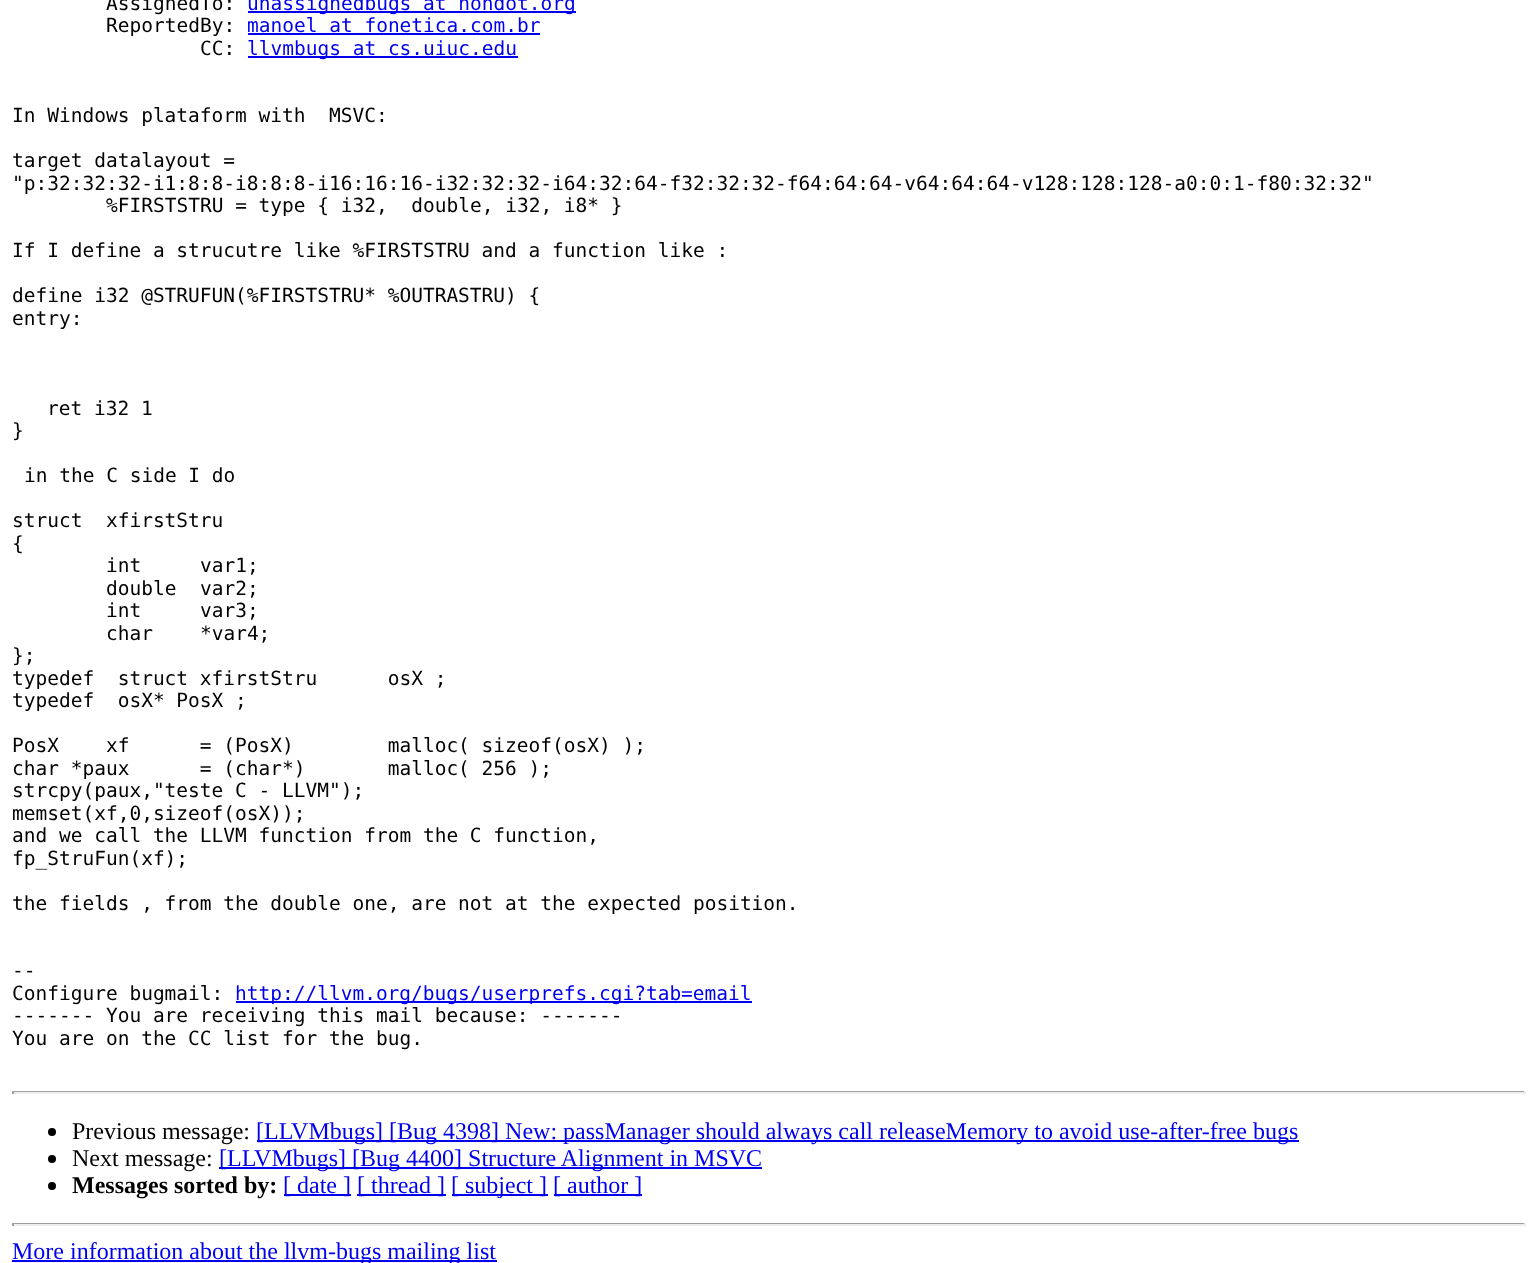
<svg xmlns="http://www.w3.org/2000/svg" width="1537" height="1263">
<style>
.a{font:19.5px DejaVu Sans Mono;fill:#000}
.b{font:19.5px DejaVu Sans Mono;fill:#00e}
.c{font:24px Liberation Serif;fill:#000}
.d{font:24px Liberation Serif;fill:#00e}
.e{font:bold 24px Liberation Serif;fill:#000}
</style>
<rect width="100%" height="100%" fill="#fff"/>
<path fill="#00e" d="M248 11h328v2H248z"/>
<path fill="#00e" d="M248 33h292v2H248z"/>
<path fill="#00e" d="M248 56h270v2H248z"/>
<path fill="#00e" d="M236 1001h516v2H236z"/>
<path fill="#9f9f9f" d="M12 1091h1514v1H12z"/>
<path fill="#eee" d="M1524 1091h2v3H1524z"/>
<path fill="#eee" d="M12 1092h1514v2H12z"/>
<path fill="#9f9f9f" d="M12 1091h2v3H12z"/>
<circle fill="#000" cx="52" cy="1132" r="4"/>
<path fill="#00e" d="M257 1140h1042v2H257z"/>
<circle fill="#000" cx="52" cy="1159" r="4"/>
<path fill="#00e" d="M219 1167h543v2H219z"/>
<circle fill="#000" cx="52" cy="1186" r="4"/>
<path fill="#00e" d="M284 1194h67v2H284z"/>
<path fill="#00e" d="M357 1194h89v2H357z"/>
<path fill="#00e" d="M452 1194h96v2H452z"/>
<path fill="#00e" d="M554 1194h88v2H554z"/>
<path fill="#9f9f9f" d="M12 1223h1514v1H12z"/>
<path fill="#eee" d="M1524 1223h2v3H1524z"/>
<path fill="#eee" d="M12 1224h1514v2H12z"/>
<path fill="#9f9f9f" d="M12 1223h2v3H12z"/>
<path fill="#00e" d="M12 1260h485v2H12z"/>
<text class="a" x="106" y="10">AssignedTo:</text>
<text class="b" x="247" y="10">unassignedbugs at nondot.org</text>
<text class="a" x="106" y="32">ReportedBy:</text>
<text class="b" x="247" y="32">manoel at fonetica.com.br</text>
<text class="a" x="200" y="55">CC:</text>
<text class="b" x="247" y="55">llvmbugs at cs.uiuc.edu</text>
<text class="a" xml:space="preserve" x="12" y="122">In Windows plataform with  MSVC:</text>
<text class="a" x="12" y="167">target datalayout =</text>
<text class="a" x="12" y="190">"p:32:32:32-i1:8:8-i8:8:8-i16:16:16-i32:32:32-i64:32:64-f32:32:32-f64:64:64-v64:64:64-v128:128:128-a0:0:1-f80:32:32"</text>
<text class="a" xml:space="preserve" x="106" y="212">%FIRSTSTRU = type { i32,  double, i32, i8* }</text>
<text class="a" x="12" y="257">If I define a strucutre like %FIRSTSTRU and a function like :</text>
<text class="a" x="12" y="302">define i32 @STRUFUN(%FIRSTSTRU* %OUTRASTRU) {</text>
<text class="a" x="12" y="325">entry:</text>
<text class="a" x="47" y="415">ret i32 1</text>
<text class="a" x="12" y="437">}</text>
<text class="a" x="24" y="482">in the C side I do</text>
<text class="a" xml:space="preserve" x="12" y="527">struct  xfirstStru</text>
<text class="a" x="12" y="550">{</text>
<text class="a" xml:space="preserve" x="106" y="572">int     var1;</text>
<text class="a" xml:space="preserve" x="106" y="595">double  var2;</text>
<text class="a" xml:space="preserve" x="106" y="617">int     var3;</text>
<text class="a" xml:space="preserve" x="106" y="640">char    *var4;</text>
<text class="a" x="12" y="662">};</text>
<text class="a" xml:space="preserve" x="12" y="685">typedef  struct xfirstStru      osX ;</text>
<text class="a" xml:space="preserve" x="12" y="707">typedef  osX* PosX ;</text>
<text class="a" xml:space="preserve" x="12" y="752">PosX    xf      = (PosX)        malloc( sizeof(osX) );</text>
<text class="a" xml:space="preserve" x="12" y="775">char *paux      = (char*)       malloc( 256 );</text>
<text class="a" x="12" y="797">strcpy(paux,"teste C - LLVM");</text>
<text class="a" x="12" y="820">memset(xf,0,sizeof(osX));</text>
<text class="a" x="12" y="842">and we call the LLVM function from the C function,</text>
<text class="a" x="12" y="865">fp_StruFun(xf);</text>
<text class="a" x="12" y="910">the fields , from the double one, are not at the expected position.</text>
<text class="a" x="12" y="977">--</text>
<text class="a" x="12" y="1000">Configure bugmail:</text>
<text class="b" x="235" y="1000">http://llvm.org/bugs/userprefs.cgi?tab=email</text>
<text class="a" x="12" y="1022">------- You are receiving this mail because: -------</text>
<text class="a" x="12" y="1045">You are on the CC list for the bug.</text>
<text class="c" x="72" y="1139">Previous message:</text>
<text class="d" x="256" y="1139">[LLVMbugs] [Bug 4398] New: passManager should always call releaseMemory to avoid use-after-free bugs</text>
<text class="c" x="72" y="1166">Next message:</text>
<text class="d" x="219" y="1166">[LLVMbugs] [Bug 4400] Structure Alignment in MSVC</text>
<text class="e" x="72" y="1193">Messages sorted by:</text>
<text class="d" x="283" y="1193">[ date ]</text>
<text class="d" x="357" y="1193">[ thread ]</text>
<text class="d" x="451" y="1193">[ subject ]</text>
<text class="d" x="553" y="1193">[ author ]</text>
<text class="d" x="12" y="1259">More information about the llvm-bugs mailing list</text>
</svg>
